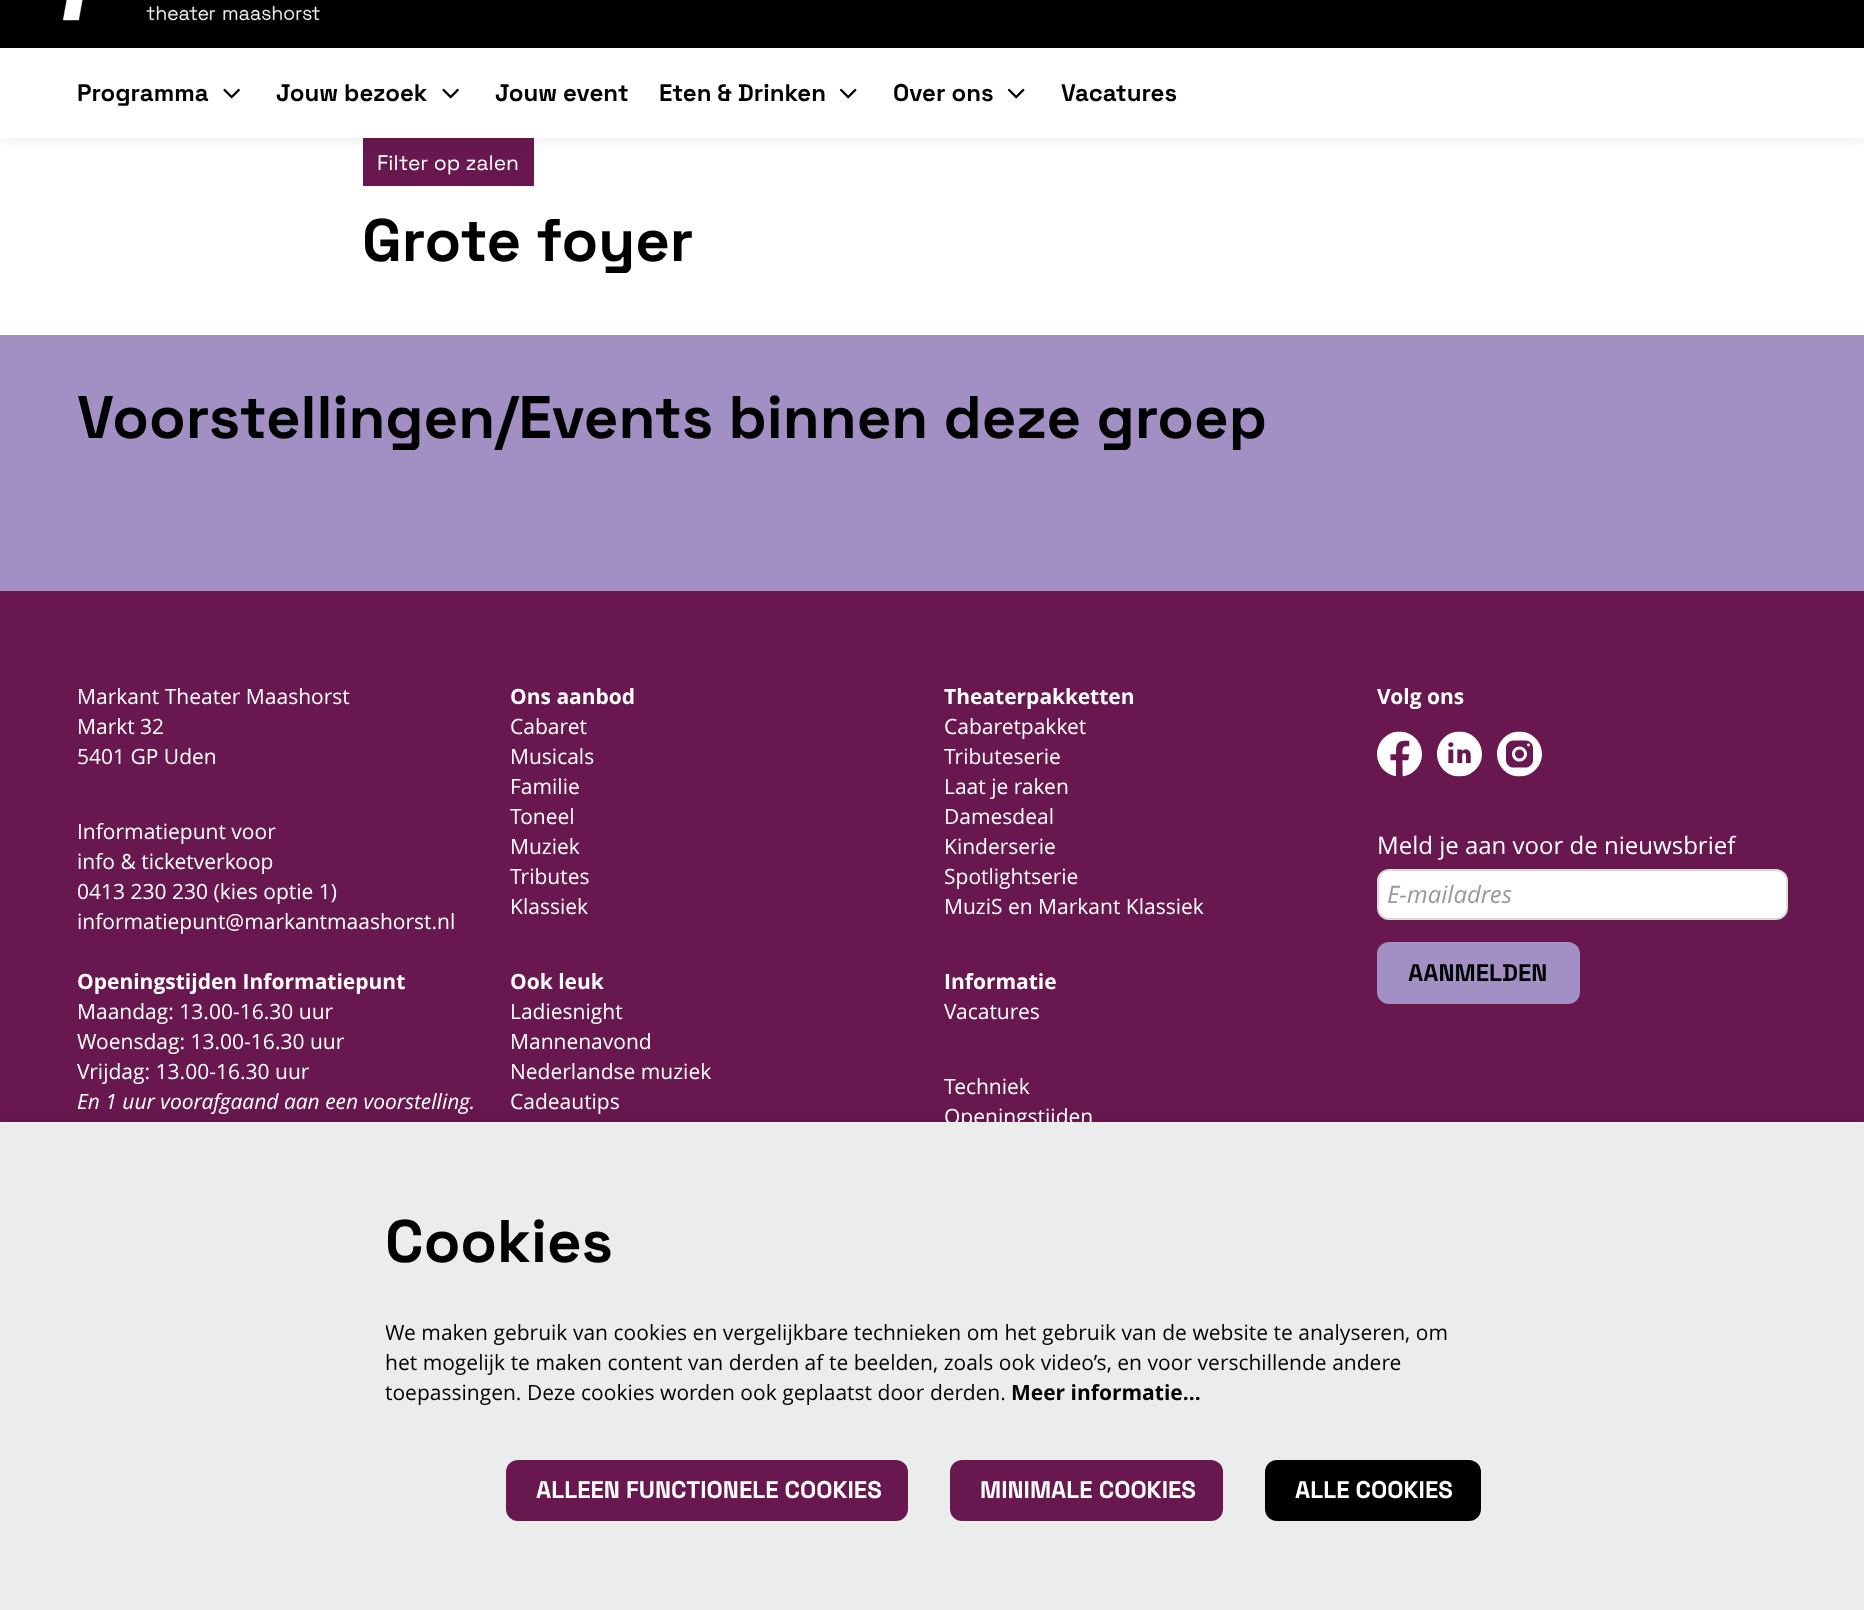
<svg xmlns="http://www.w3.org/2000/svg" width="1864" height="1610">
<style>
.a{font:bold 24px Space Grotesk;fill:#000}
.b{font:21px Space Grotesk;fill:#fff}
.c{font:bold 60px Space Grotesk;fill:#000}
.d{font:21px Open Sans;fill:#fff}
.e{font:bold 21px Open Sans;fill:#fff}
.f{font:italic 21px Open Sans;fill:#fff}
.g{font:24px Open Sans;fill:#fff}
.h{font:italic 24px Open Sans;fill:#999}
.i{font:21px Open Sans;fill:#000}
.j{font:bold 21px Open Sans;fill:#000}
.k{font:bold 24px Space Grotesk;fill:#fff}
</style>
<defs>
<clipPath id="clip1"><path d="M386 1317h1095v120H386z"/></clipPath>
</defs>
<rect width="100%" height="100%" fill="#fff"/>
<path fill="#68184e" d="M363 138h171v48H363z"/>
<path fill="#0000001a" filter="blur(7.5px)" d="M0 -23h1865v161H0z"/>
<path fill="#000" d="M0 0h1864v48H0z"/>
<image href="1.png" x="62" y="0" width="258" height="21"/>
<path fill="#fff" d="M0 48h1864v90H0z"/>
<image href="2.png" x="223" y="88" width="17" height="11"/>
<image href="2.png" x="442" y="88" width="17" height="11"/>
<image href="3.png" x="839" y="88" width="18" height="11"/>
<image href="3.png" x="1007" y="88" width="18" height="11"/>
<path fill="#a290c4" d="M0 335h1864v256H0z"/>
<path fill="#68184e" d="M0 591h1864v531H0z"/>
<image href="4.png" x="1377" y="731" width="45" height="46"/>
<image href="5.png" x="1437" y="731" width="45" height="46"/>
<image href="6.png" x="1497" y="731" width="45" height="46"/>
<rect fill="#fff" stroke="#dbdbdb" stroke-width="2" x="1378" y="870" width="409" height="49" rx="11"/>
<rect fill="#a290c4" x="1377" y="942" width="203" height="62" rx="12"/>
<path fill="#0000001a" filter="blur(7.5px)" d="M0 1122h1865v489H0z"/>
<text class="a" x="77" y="101">Programma</text>
<text class="a" x="276" y="101">Jouw bezoek</text>
<text class="a" x="495" y="101">Jouw event</text>
<text class="a" x="659" y="101">Eten &amp; Drinken</text>
<text class="a" x="893" y="101">Over ons</text>
<text class="a" x="1061" y="101">Vacatures</text>
<text class="b" x="377" y="170">Filter op zalen</text>
<text class="c" x="362" y="261">Grote foyer</text>
<text class="c" x="77" y="438">Voorstellingen/Events binnen deze groep</text>
<text class="d" x="77" y="704">Markant Theater Maashorst</text>
<text class="d" x="77" y="734">Markt 32</text>
<text class="d" x="77" y="764">5401 GP Uden</text>
<text class="d" x="77" y="839">Informatiepunt voor</text>
<text class="d" x="77" y="869">info &amp; ticketverkoop</text>
<text class="d" x="77" y="899">0413 230 230 (kies optie 1)</text>
<text class="d" x="77" y="929">informatiepunt@markantmaashorst.nl</text>
<text class="e" x="77" y="989">Openingstijden Informatiepunt</text>
<text class="d" x="77" y="1019">Maandag: 13.00-16.30 uur</text>
<text class="d" x="77" y="1049">Woensdag: 13.00-16.30 uur</text>
<text class="d" x="77" y="1079">Vrijdag: 13.00-16.30 uur</text>
<text class="f" x="77" y="1109">En 1 uur voorafgaand aan een voorstelling.</text>
<text class="e" x="510" y="704">Ons aanbod</text>
<text class="d" x="510" y="734">Cabaret</text>
<text class="d" x="510" y="764">Musicals</text>
<text class="d" x="510" y="794">Familie</text>
<text class="d" x="510" y="824">Toneel</text>
<text class="d" x="510" y="854">Muziek</text>
<text class="d" x="510" y="884">Tributes</text>
<text class="d" x="510" y="914">Klassiek</text>
<text class="e" x="510" y="989">Ook leuk</text>
<text class="d" x="510" y="1019">Ladiesnight</text>
<text class="d" x="510" y="1049">Mannenavond</text>
<text class="d" x="510" y="1079">Nederlandse muziek</text>
<text class="d" x="510" y="1109">Cadeautips</text>
<text class="e" x="944" y="704">Theaterpakketten</text>
<text class="d" x="944" y="734">Cabaretpakket</text>
<text class="d" x="944" y="764">Tributeserie</text>
<text class="d" x="944" y="794">Laat je raken</text>
<text class="d" x="944" y="824">Damesdeal</text>
<text class="d" x="944" y="854">Kinderserie</text>
<text class="d" x="944" y="884">Spotlightserie</text>
<text class="d" x="944" y="914">MuziS en Markant Klassiek</text>
<text class="e" x="944" y="989">Informatie</text>
<text class="d" x="944" y="1019">Vacatures</text>
<text class="d" x="944" y="1094">Techniek</text>
<text class="d" x="944" y="1124">Openingstijden</text>
<text class="e" x="1377" y="704">Volg ons</text>
<text class="g" x="1377" y="854">Meld je aan voor de nieuwsbrief</text>
<text class="h" x="1387" y="903">E-mailadres</text>
<text class="a" x="1408" y="981">AANMELDEN</text>
<path fill="#ebecec" d="M0 1122h1864v488H0z"/>
<text class="c" x="385" y="1262">Cookies</text>
<g clip-path="url(#clip1)">
<text class="i" x="385" y="1340" word-spacing="0.1">We maken gebruik van cookies en vergelijkbare technieken om het gebruik van de website te analyseren, om</text>
</g>
<text class="i" x="385" y="1370" word-spacing="0.1">het mogelijk te maken content van derden af te beelden, zoals ook video’s, en voor verschillende andere</text>
<text class="i" x="385" y="1400" word-spacing="0.1">toepassingen. Deze cookies worden ook geplaatst door derden.</text>
<text class="j" x="1011" y="1400">Meer informatie…</text>
<rect fill="#68184e" x="506" y="1460" width="402" height="61" rx="12"/>
<text class="k" x="536" y="1498">ALLEEN FUNCTIONELE COOKIES</text>
<rect fill="#68184e" x="950" y="1460" width="273" height="61" rx="12"/>
<text class="k" x="980" y="1498">MINIMALE COOKIES</text>
<rect fill="#000" x="1265" y="1460" width="216" height="61" rx="12"/>
<text class="k" x="1295" y="1498">ALLE COOKIES</text>
</svg>
